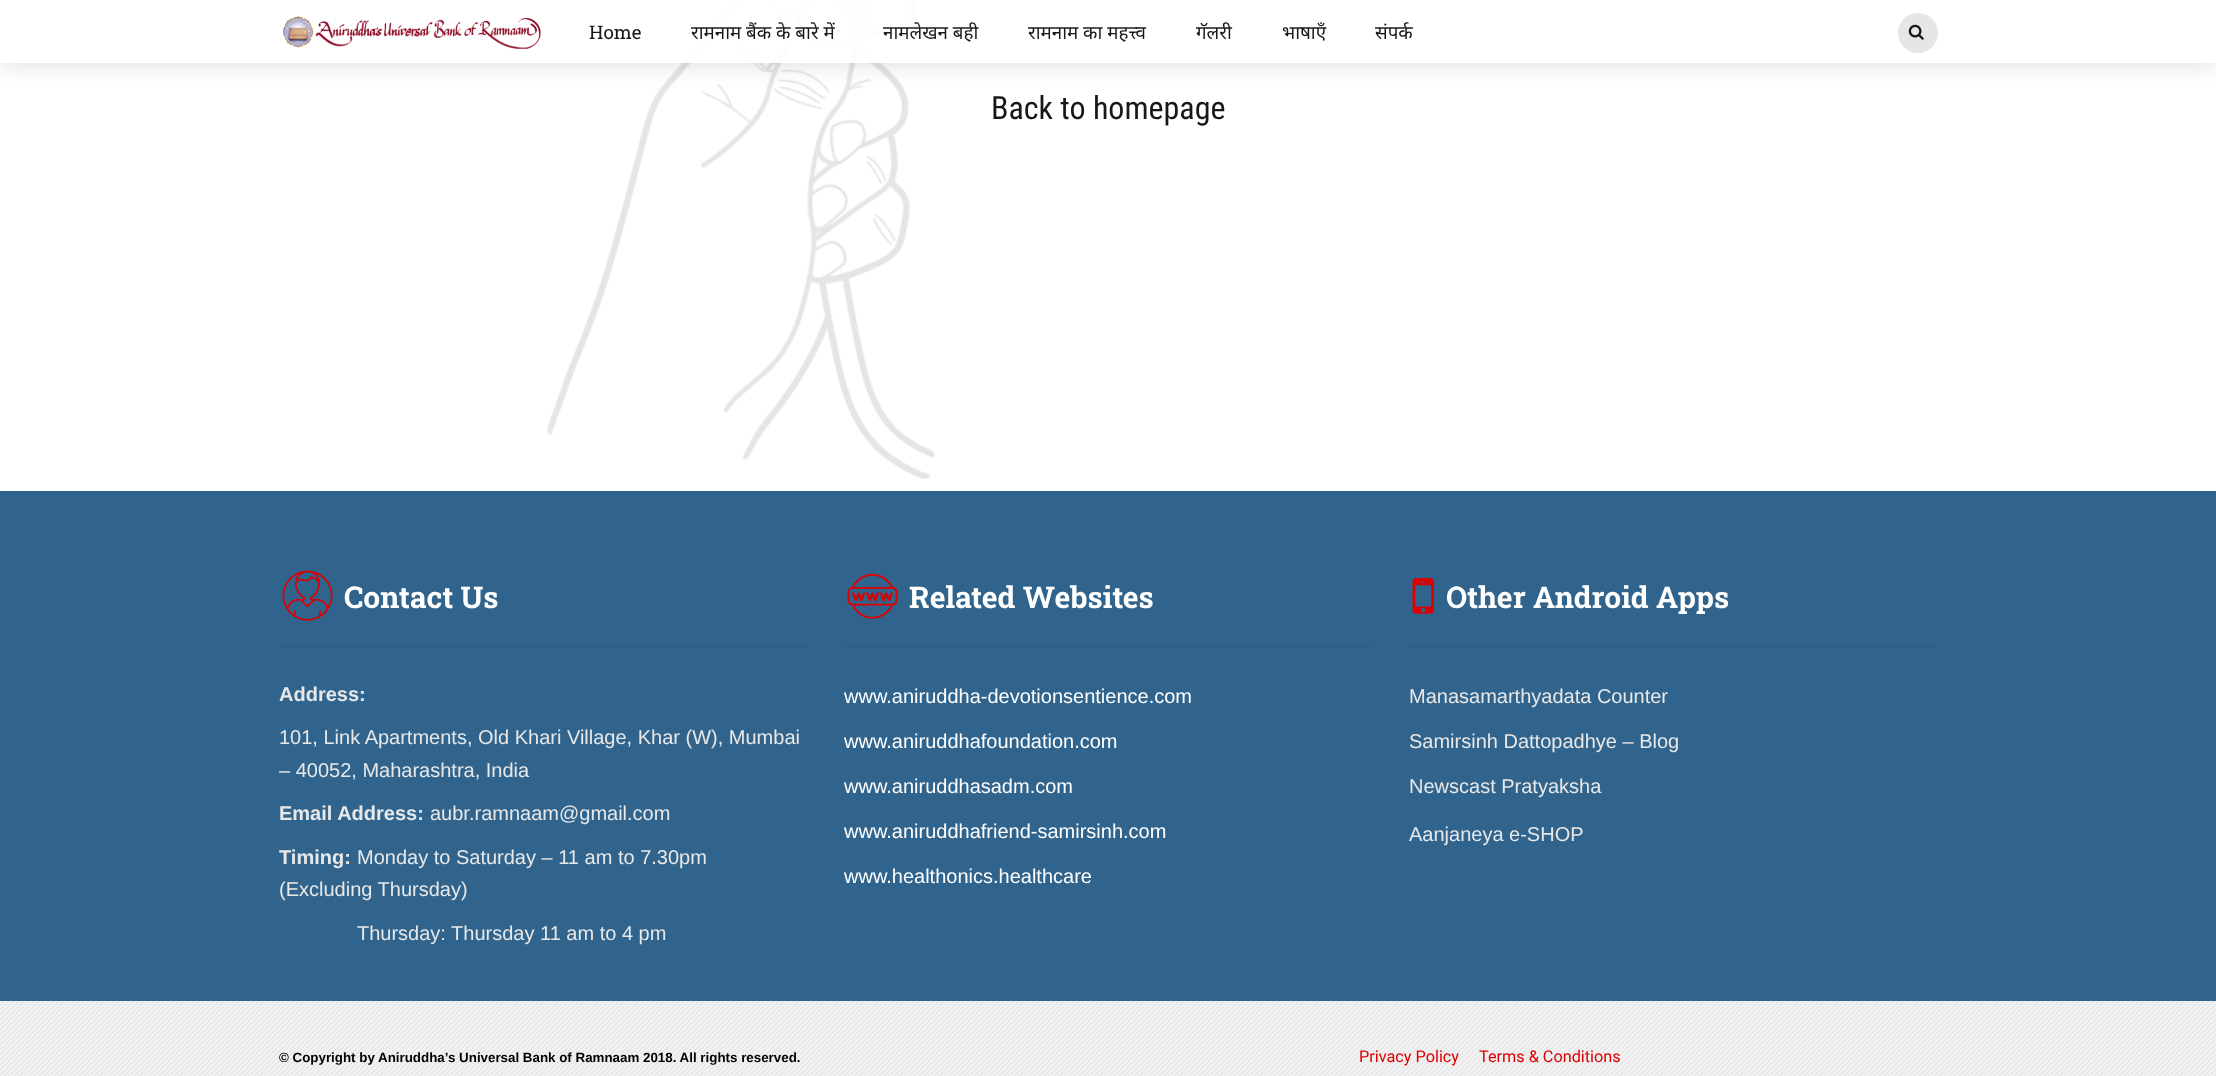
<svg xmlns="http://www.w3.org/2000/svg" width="2216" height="1076">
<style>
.a{font:18.75px Roboto Slab;fill:#181818}
.b{font:18.75px Noto Sans;fill:#181818}
.c{font:32px Roboto Condensed;fill:#181818}
.d{font:bold 30px Roboto Slab;fill:#fff}
.e{font:bold 20px Liberation Sans;fill:#e8e8e8}
.f{font:20px Liberation Sans;fill:#e8e8e8}
.g{font:20px Liberation Sans;fill:#fff}
.h{font:bold 13.35px Liberation Sans;fill:#000}
.i{font:16.25px Roboto;fill:#dc0003}
</style>
<defs>
<clipPath id="clip1"><path d="M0 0h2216v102h-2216zm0 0h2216v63h-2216z" clip-rule="evenodd"/></clipPath>
</defs>
<rect width="100%" height="100%" fill="#fff"/>
<image href="3.png" x="547" y="0" width="388" height="479"/>
<g clip-path="url(#clip1)">
<path fill="#00000026" filter="blur(12.5px)" d="M0 0h2216v63H0z"/>
</g>
<path fill="#ffffffe6" d="M0 0h2216v63H0z"/>
<image href="1.png" x="282" y="16" width="259" height="34"/>
<circle fill="#e6e6e6" cx="1918" cy="33" r="20"/>
<image href="2.png" x="1908" y="24" width="16" height="16"/>
<path fill="#30648d" d="M0 491h2216v510H0z"/>
<image href="4.png" x="282" y="570" width="51" height="51"/>
<path fill="#2b5a7f" d="M280 646h528v1H280z"/>
<image href="5.png" x="847" y="573" width="51" height="46"/>
<path fill="#2b5a7f" d="M845 646h528v1H845z"/>
<image href="6.png" x="1412" y="578" width="22" height="36"/>
<path fill="#2b5a7f" d="M1410 646h528v1H1410z"/>
<path fill="#f4f4f4" d="M0 1001h2216v75H0z"/>
<image href="7.png" x="0" y="1001" width="2216" height="75"/>
<text class="a" x="589" y="39">Home</text>
<text class="b" x="691" y="39">रामनाम बैंक के बारे में</text>
<text class="b" x="883" y="39">नामलेखन बही</text>
<text class="b" x="1028" y="39">रामनाम का महत्त्व</text>
<text class="b" x="1196" y="39">गॅलरी</text>
<text class="b" x="1282" y="39">भाषाएँ</text>
<text class="b" x="1375" y="39">संपर्क</text>
<text class="c" x="991" y="119">Back to homepage</text>
<text class="d" x="344" y="608">Contact Us</text>
<text class="e" x="279" y="701">Address:</text>
<text class="f" x="279" y="744">101, Link Apartments, Old Khari Village, Khar (W), Mumbai</text>
<text class="f" x="279" y="777">– 40052, Maharashtra, India</text>
<text class="e" x="279" y="820">Email Address:</text>
<text class="f" x="430" y="820">aubr.ramnaam@gmail.com</text>
<text class="e" x="279" y="864">Timing:</text>
<text class="f" x="357" y="864">Monday to Saturday – 11 am to 7.30pm</text>
<text class="f" x="279" y="896">(Excluding Thursday)</text>
<text class="f" x="357" y="940">Thursday: Thursday 11 am to 4 pm</text>
<text class="d" x="909" y="608">Related Websites</text>
<text class="g" x="844" y="703">www.aniruddha-devotionsentience.com</text>
<text class="g" x="844" y="748">www.aniruddhafoundation.com</text>
<text class="g" x="844" y="793">www.aniruddhasadm.com</text>
<text class="g" x="844" y="838">www.aniruddhafriend-samirsinh.com</text>
<text class="g" x="844" y="883">www.healthonics.healthcare</text>
<text class="d" x="1446" y="608">Other Android Apps</text>
<text class="f" x="1409" y="703">Manasamarthyadata Counter</text>
<text class="f" x="1409" y="748">Samirsinh Dattopadhye – Blog</text>
<text class="f" x="1409" y="793">Newscast Pratyaksha</text>
<text class="f" x="1409" y="841">Aanjaneya e-SHOP</text>
<text class="h" x="279" y="1062">© Copyright by Aniruddha’s Universal Bank of Ramnaam 2018. All rights reserved.</text>
<text class="i" x="1359" y="1062">Privacy Policy</text>
<text class="i" x="1479" y="1062">Terms &amp; Conditions</text>
</svg>
